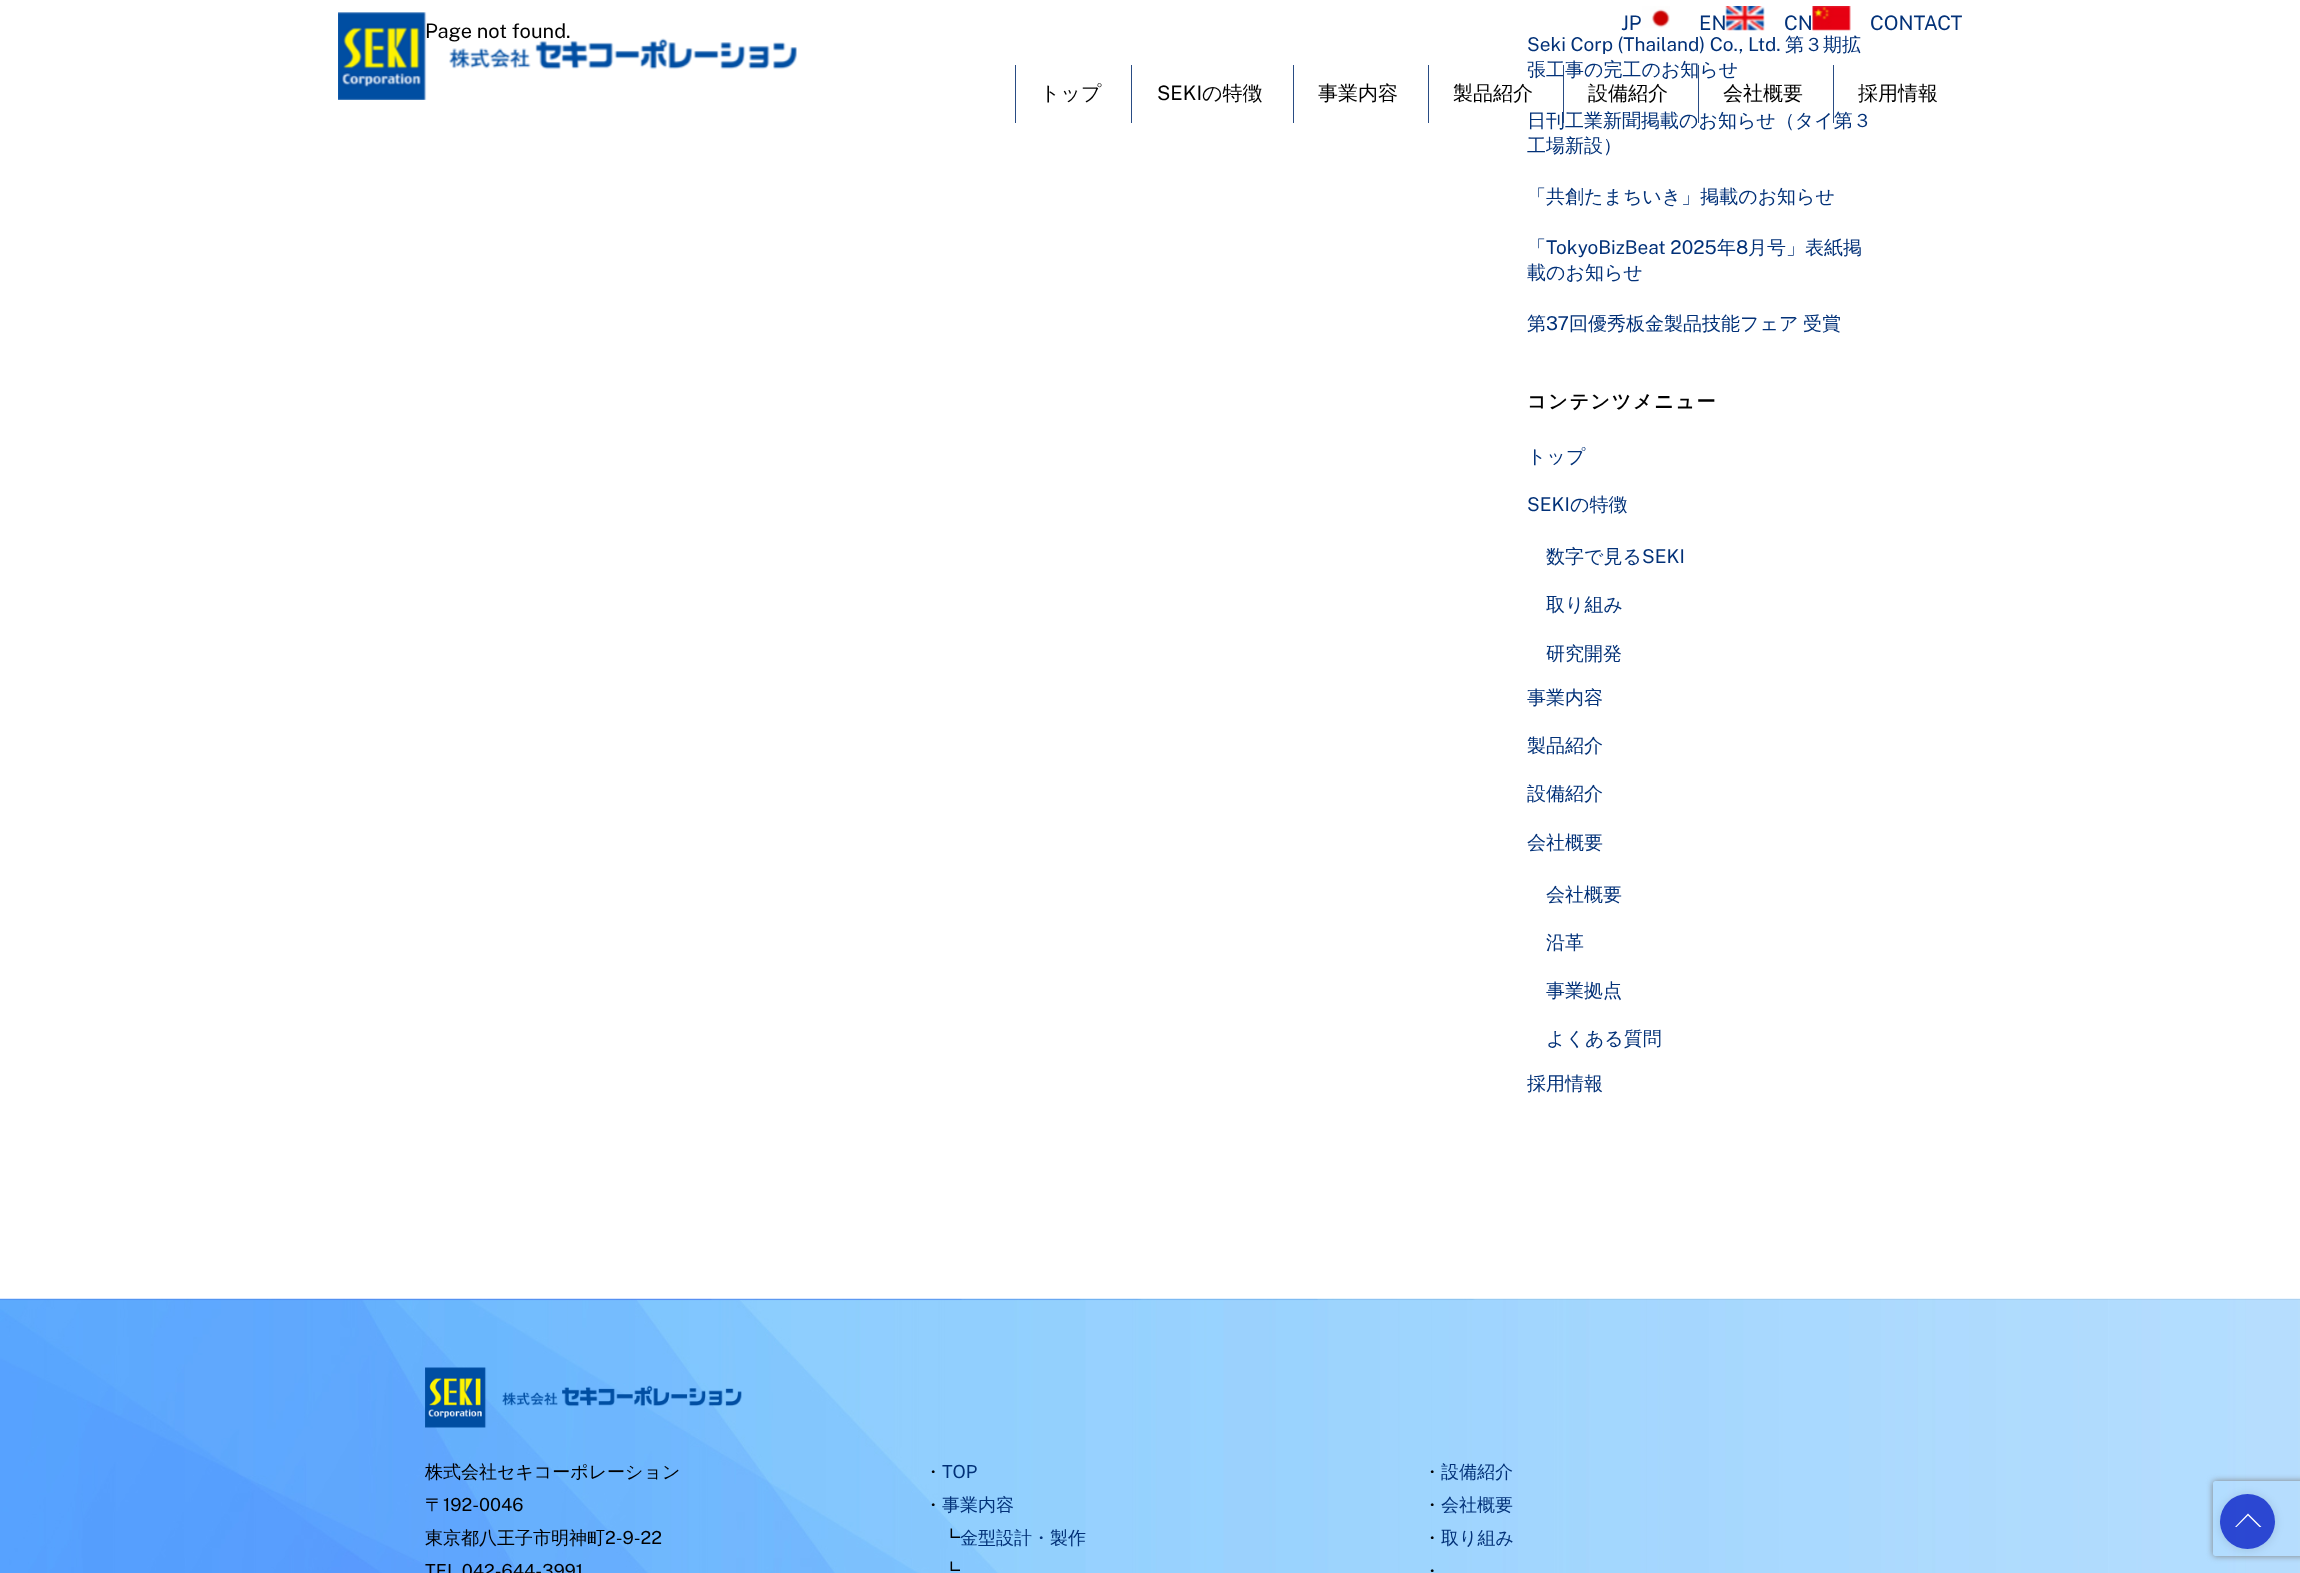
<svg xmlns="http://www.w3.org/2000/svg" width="2300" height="1573">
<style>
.a{font:20px Public Sans;fill:#023178}
.b{font:500 20px WenQuanYi Zen Hei;fill:#000}
.c{font:20px Public Sans;fill:#000}
.d{font:19px Public Sans;fill:#023178}
.e{font:500 19px WenQuanYi Zen Hei;fill:#023178}
.f{font:bold 19px WenQuanYi Zen Hei;letter-spacing:1.75px;fill:#000}
.g{font:500 18px WenQuanYi Zen Hei;fill:#000}
.h{font:18px Public Sans;fill:#000}
.i{font:18px Public Sans;fill:#023178}
.j{font:500 18px WenQuanYi Zen Hei;fill:#023178}
</style>
<defs>
<clipPath id="clip1"><path d="M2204 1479h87v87h-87zm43.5 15c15 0 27.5 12.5 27.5 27.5c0 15-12.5 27.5-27.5 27.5c-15 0-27.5-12.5-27.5-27.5c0-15 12.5-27.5 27.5-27.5z" clip-rule="evenodd"/></clipPath>
<clipPath id="clip2"><path d="M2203 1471h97v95h-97zm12.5 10h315c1.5 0 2.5 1 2.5 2.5v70c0 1.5-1 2.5-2.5 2.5h-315c-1.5 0-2.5-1-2.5-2.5v-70c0-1.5 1-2.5 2.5-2.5z" clip-rule="evenodd"/></clipPath>
</defs>
<rect width="100%" height="100%" fill="#fff"/>
<image href="3.png" x="1725" y="6" width="40" height="25"/>
<image href="4.png" x="1812" y="6" width="39" height="25"/>
<path fill="#294c84" d="M1015 65h1v58H1015z"/>
<path fill="#294c84" d="M1131 65h1v58H1131z"/>
<path fill="#294c84" d="M1293 65h1v58H1293z"/>
<path fill="#294c84" d="M1428 65h1v58H1428z"/>
<image href="5.png" x="0" y="1298" width="2300" height="275"/>
<path fill="#0000000d" d="M0 1299h2300v1H0z"/>
<image href="6.png" x="425" y="1367" width="317" height="61"/>
<g clip-path="url(#clip1)">
<rect fill="#0000001f" filter="blur(5px)" x="2220" y="1495" width="55" height="55" rx="27.5"/>
</g>
<g clip-path="url(#clip2)">
<rect fill="#808080" filter="blur(3px)" x="2213" y="1481" width="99" height="75" rx="2.5"/>
</g>
<circle fill="#0922c7cc" cx="2247.5" cy="1521.5" r="27.5"/>
<path fill="#fff" d="M2248 1513.5l13.5 13.5h-2l-11.5-11.5zm-13 13.5l13-13.5v2l-11.5 11.5z"/>
<text class="a" x="1621" y="30">JP</text>
<image href="2.png" x="1640" y="6" width="30" height="22"/>
<text class="a" x="1699" y="30">EN</text>
<text class="a" x="1784" y="30">CN</text>
<text class="a" x="1870" y="30">CONTACT</text>
<text class="b" x="1040" y="100">トップ</text>
<text class="c" x="1157" y="100">SEKI</text>
<text class="b" x="1202" y="100">の特徴</text>
<text class="b" x="1318" y="100">事業内容</text>
<text class="b" x="1453" y="100">製品紹介</text>
<text class="b" x="1588" y="100">設備紹介</text>
<text class="b" x="1723" y="100">会社概要</text>
<text class="b" x="1858" y="100">採用情報</text>
<text class="c" x="425" y="38">Page not found.</text>
<image href="1.png" x="338" y="12" width="459" height="88"/>
<text class="d" x="1527" y="51">Seki Corp (Thailand) Co., Ltd.</text>
<text class="e" x="1785" y="51">第３期拡</text>
<text class="e" x="1527" y="76">張工事の完工のお知らせ</text>
<text class="e" x="1527" y="127">日刊工業新聞掲載のお知らせ（タイ第３</text>
<path fill="#294c84" d="M1833 65h1v58H1833z"/>
<path fill="#294c84" d="M1698 65h1v58H1698z"/>
<path fill="#294c84" d="M1563 65h1v58H1563z"/>
<text class="e" x="1527" y="152">工場新設）</text>
<text class="e" x="1527" y="203">「共創たまちいき」掲載のお知らせ</text>
<text class="e" x="1527" y="254">「</text>
<text class="d" x="1546" y="254">TokyoBizBeat 2025</text>
<text class="e" x="1717" y="254">年</text>
<text class="d" x="1736" y="254">8</text>
<text class="e" x="1748" y="254">月号」表紙掲</text>
<text class="e" x="1527" y="279">載のお知らせ</text>
<text class="e" x="1527" y="330">第</text>
<text class="d" x="1546" y="330">37</text>
<text class="e" x="1569" y="330" word-spacing="-1">回優秀板金製品技能フェア 受賞</text>
<text class="f" x="1527" y="408">コンテンツメニュー</text>
<text class="e" x="1527" y="463">トップ</text>
<text class="d" x="1527" y="511">SEKI</text>
<text class="e" x="1570" y="511">の特徴</text>
<text class="e" x="1546" y="563">数字で見る</text>
<text class="d" x="1642" y="563">SEKI</text>
<text class="e" x="1546" y="611">取り組み</text>
<text class="e" x="1546" y="660">研究開発</text>
<text class="e" x="1527" y="704">事業内容</text>
<text class="e" x="1527" y="752">製品紹介</text>
<text class="e" x="1527" y="800">設備紹介</text>
<text class="e" x="1527" y="849">会社概要</text>
<text class="e" x="1546" y="901">会社概要</text>
<text class="e" x="1546" y="949">沿革</text>
<text class="e" x="1546" y="997">事業拠点</text>
<text class="e" x="1546" y="1045">よくある質問</text>
<text class="e" x="1527" y="1090">採用情報</text>
<text class="g" x="425" y="1478">株式会社セキコーポレーション</text>
<text class="g" x="425" y="1511">〒</text>
<text class="h" x="443" y="1511">192-0046</text>
<text class="g" x="425" y="1544">東京都八王子市明神町</text>
<text class="h" x="605" y="1544">2-9-22</text>
<text class="h" x="425" y="1577">TEL 042-644-3991</text>
<text class="g" x="924" y="1478">・</text>
<text class="i" x="942" y="1478">TOP</text>
<text class="g" x="924" y="1511">・</text>
<text class="j" x="942" y="1511">事業内容</text>
<text class="g" x="942" y="1544">┗</text>
<text class="j" x="960" y="1544">金型設計・製作</text>
<text class="g" x="942" y="1577">┗</text>
<text class="g" x="1423" y="1478">・</text>
<text class="j" x="1441" y="1478">設備紹介</text>
<text class="g" x="1423" y="1511">・</text>
<text class="j" x="1441" y="1511">会社概要</text>
<text class="g" x="1423" y="1544">・</text>
<text class="j" x="1441" y="1544">取り組み</text>
<text class="g" x="1423" y="1577">・</text>
</svg>
